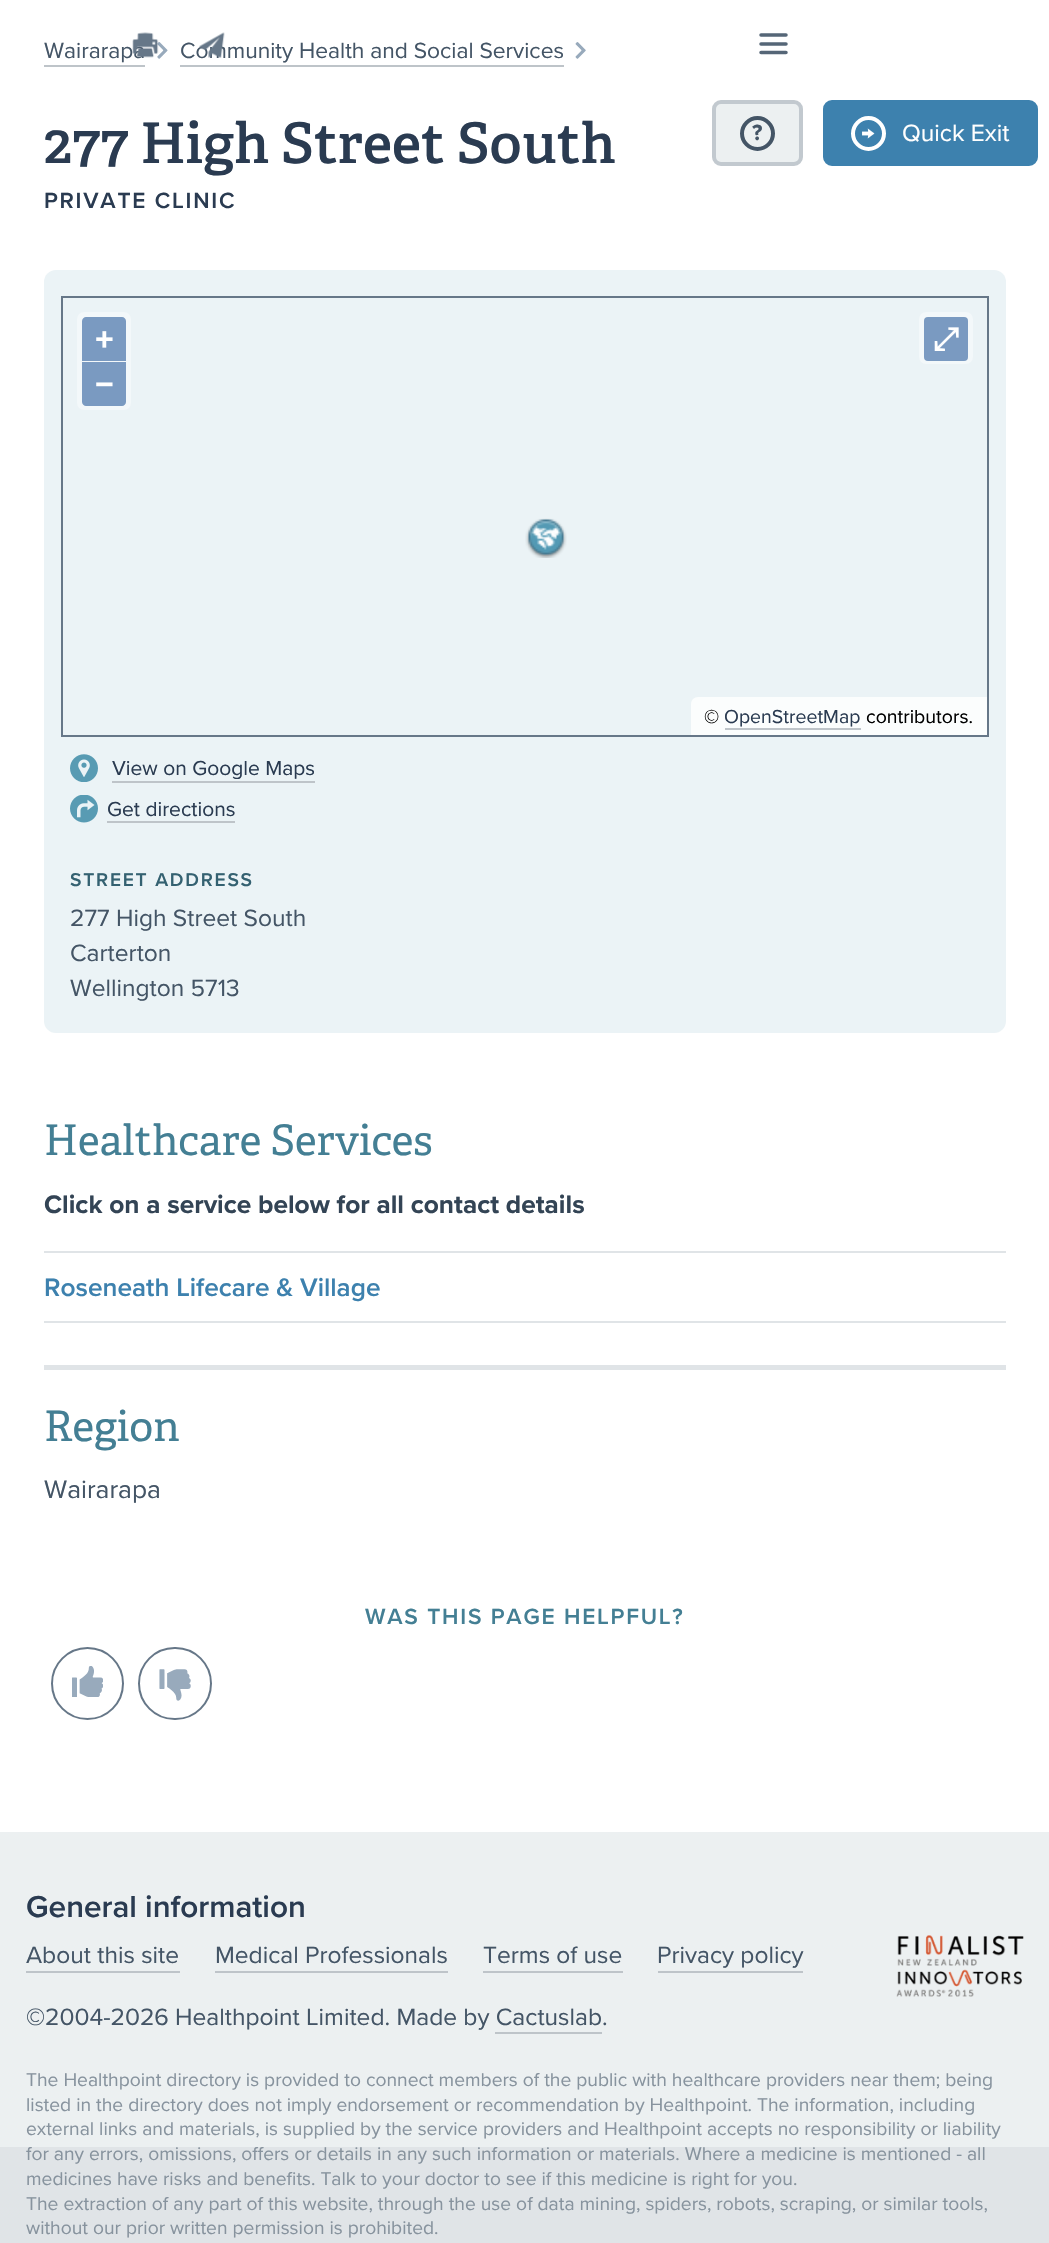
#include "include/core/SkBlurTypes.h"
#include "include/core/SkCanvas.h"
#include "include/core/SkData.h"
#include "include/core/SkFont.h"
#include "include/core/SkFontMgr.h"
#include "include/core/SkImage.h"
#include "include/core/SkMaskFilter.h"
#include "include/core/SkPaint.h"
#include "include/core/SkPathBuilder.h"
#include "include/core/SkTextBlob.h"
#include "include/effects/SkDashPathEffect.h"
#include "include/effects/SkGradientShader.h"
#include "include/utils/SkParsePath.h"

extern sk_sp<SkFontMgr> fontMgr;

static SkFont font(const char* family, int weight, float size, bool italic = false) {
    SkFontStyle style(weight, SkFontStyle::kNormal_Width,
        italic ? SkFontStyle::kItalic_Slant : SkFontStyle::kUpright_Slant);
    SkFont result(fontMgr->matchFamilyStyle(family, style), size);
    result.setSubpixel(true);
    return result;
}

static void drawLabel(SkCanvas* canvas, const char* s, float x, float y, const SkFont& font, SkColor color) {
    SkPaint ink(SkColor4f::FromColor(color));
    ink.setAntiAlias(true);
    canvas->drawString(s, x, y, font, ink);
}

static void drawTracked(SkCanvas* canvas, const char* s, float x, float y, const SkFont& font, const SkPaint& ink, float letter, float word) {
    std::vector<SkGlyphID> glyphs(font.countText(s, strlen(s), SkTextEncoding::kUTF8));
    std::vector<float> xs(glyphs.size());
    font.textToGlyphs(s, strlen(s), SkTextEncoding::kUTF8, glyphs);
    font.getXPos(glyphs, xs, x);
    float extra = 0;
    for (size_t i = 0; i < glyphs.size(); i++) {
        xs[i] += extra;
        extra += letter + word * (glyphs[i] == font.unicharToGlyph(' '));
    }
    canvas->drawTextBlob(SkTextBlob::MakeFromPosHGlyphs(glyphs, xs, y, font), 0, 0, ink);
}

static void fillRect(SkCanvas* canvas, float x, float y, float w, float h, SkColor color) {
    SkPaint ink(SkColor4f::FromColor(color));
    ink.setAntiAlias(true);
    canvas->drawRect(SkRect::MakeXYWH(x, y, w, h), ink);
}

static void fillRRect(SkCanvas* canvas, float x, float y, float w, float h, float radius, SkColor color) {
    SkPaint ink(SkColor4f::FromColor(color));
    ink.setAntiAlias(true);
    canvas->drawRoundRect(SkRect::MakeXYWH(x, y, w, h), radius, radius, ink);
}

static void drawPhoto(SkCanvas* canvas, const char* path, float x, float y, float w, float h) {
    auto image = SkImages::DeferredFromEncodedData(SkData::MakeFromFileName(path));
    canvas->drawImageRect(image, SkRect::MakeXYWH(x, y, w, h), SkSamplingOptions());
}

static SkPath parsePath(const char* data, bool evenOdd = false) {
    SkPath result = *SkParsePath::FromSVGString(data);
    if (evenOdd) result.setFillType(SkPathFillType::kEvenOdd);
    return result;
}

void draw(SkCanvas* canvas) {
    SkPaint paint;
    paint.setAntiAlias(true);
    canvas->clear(0xFFE0E4E7);
    fillRect(canvas, 0, 0, 1049, 1832, 0xFFFFFFFF);
    SkFont font1 = font("Proxima Nova", 400, 22.75f);
    drawLabel(canvas, "Wairarapa", 44, 58, font1, 0xFF445566);
    drawPhoto(canvas, "assets/img3.png", 157, 42, 11, 17);
    drawPhoto(canvas, "assets/img1.png", 132, 32, 27, 26);
    drawLabel(canvas, "Community Health and Social Services", 180, 58, font1, 0xFF445566);
    drawPhoto(canvas, "assets/img2.png", 199, 32, 26, 26);
    paint.setStroke(true);
    paint.setStrokeWidth(3.5f);
    paint.setStrokeCap(SkPaint::kRound_Cap);
    paint.setColor(0xFF556677);
    canvas->drawPath(parsePath("M761 35H786M761 44H786M761 52.5H786"), paint);
    fillRect(canvas, 44, 65, 101, 2, 0xFFBEC4C9);
    fillRect(canvas, 180, 65, 384, 2, 0xFFBEC4C9);
    drawPhoto(canvas, "assets/img4.png", 575, 42, 11, 17);
    SkFont font2 = font("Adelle", 600, 56);
    drawLabel(canvas, "277 High Street South", 44, 163, font2, 0xFF2A3B51);
    SkFont font3 = font("Proxima Nova", 600, 22.75f);
    paint.setStroke(false);
    paint.setColor(0xFF2A3B51);
    drawTracked(canvas, "PRIVATE CLINIC", 44, 208, font3, paint, 1.75f, 0);
    fillRRect(canvas, 44, 270, 962, 763, 12, 0xFFEBF3F6);
    paint.setStroke(true);
    paint.setStrokeWidth(2);
    paint.setStrokeCap(SkPaint::kButt_Cap);
    paint.setColor(0xFF667788);
    canvas->drawRect(SkRect::MakeXYWH(62, 297, 926, 439), paint);
    fillRRect(canvas, 77, 312, 54, 98, 7, 0xFFF3F8FA);
    paint.setStroke(false);
    paint.setColor(0xFF7A9AC1);
    canvas->drawPath(parsePath("M86 317H122C124 317 126 319 126 321V361H82V321C82 319 84 317 86 317Z"), paint);
    SkFont font4 = font("Liberation Sans", 700, 32);
    drawLabel(canvas, "+", 95, 350, font4, 0xFFFFFFFF);
    canvas->drawPath(parsePath("M82 362H126V402C126 404 124 406 122 406H86C84 406 82 404 82 402Z"), paint);
    drawLabel(canvas, "−", 95, 395, font4, 0xFFFFFFFF);
    fillRRect(canvas, 919, 312, 54, 52, 7, 0xFFF3F8FA);
    fillRRect(canvas, 924, 317, 44, 44, 4, 0xFF7A9AC1);
    SkFont font5 = font("FreeSerif", 700, 32);
    drawLabel(canvas, "⤢", 933, 350, font5, 0xFFFFFFFF);
    drawPhoto(canvas, "assets/img5.png", 525, 518, 42, 40);
    paint.setColor(0xFFFBFDFD);
    canvas->drawPath(parsePath("M698 697H987V735H691V704C691 700 694 697 698 697Z"), paint);
    SkFont font6 = font("Proxima Nova", 400, 19.5f);
    drawLabel(canvas, "©", 704, 723, font6, 0xFF000000);
    drawLabel(canvas, "OpenStreetMap", 724, 723, font6, 0xFF2A3B51);
    fillRect(canvas, 725, 728, 136, 2, 0xFFBEC4C9);
    drawLabel(canvas, "contributors.", 866, 723, font6, 0xFF000000);
    drawPhoto(canvas, "assets/img6.png", 70, 754, 28, 28);
    SkFont font7 = font("Proxima Nova", 400, 21);
    drawLabel(canvas, "View on Google Maps", 112, 775, font7, 0xFF2A3B51);
    fillRect(canvas, 112, 781, 203, 2, 0xFFBEC4C9);
    drawPhoto(canvas, "assets/img7.png", 70, 795, 28, 28);
    drawLabel(canvas, "Get directions", 107, 816, font7, 0xFF2A3B51);
    fillRect(canvas, 107, 821, 128, 2, 0xFFBEC4C9);
    SkFont font8 = font("Proxima Nova", 600, 19.25f);
    paint.setColor(0xFF346171);
    drawTracked(canvas, "STREET ADDRESS", 70, 886, font8, paint, 1.75f, 0);
    SkFont font9 = font("Proxima Nova", 400, 24.5f);
    drawLabel(canvas, "277 High Street South", 70, 926, font9, 0xFF445566);
    drawLabel(canvas, "Carterton", 70, 961, font9, 0xFF445566);
    drawLabel(canvas, "Wellington 5713", 70, 996, font9, 0xFF445566);
    SkFont font10 = font("Adelle", 400, 42);
    drawLabel(canvas, "Healthcare Services", 44, 1155, font10, 0xFF447F94);
    SkFont font11 = font("Proxima Nova", 700, 26.25f);
    drawLabel(canvas, "Click on a service below for all contact details", 44, 1213, font11, 0xFF334455);
    fillRect(canvas, 44, 1251, 962, 2, 0xFFE0E4E7);
    fillRect(canvas, 44, 1321, 962, 2, 0xFFE0E4E7);
    SkFont font12 = font("Proxima Nova", 600, 26.25f);
    drawLabel(canvas, "Roseneath Lifecare & Village", 44, 1296, font12, 0xFF3D81AE);
    fillRect(canvas, 44, 1365, 962, 5, 0xFFE0E4E7);
    drawLabel(canvas, "Region", 44, 1441, font10, 0xFF447F94);
    SkFont font13 = font("Proxima Nova", 400, 26.25f);
    drawLabel(canvas, "Wairarapa", 44, 1498, font13, 0xFF445566);
    paint.setColor(0xFF447F94);
    drawTracked(canvas, "WAS THIS PAGE HELPFUL?", 365, 1624, font3, paint, 1.75f, 0);
    paint.setStroke(true);
    paint.setColor(0xFF667788);
    canvas->drawCircle(87.5f, 1683.5f, 35.5f, paint);
    drawPhoto(canvas, "assets/img8.png", 72, 1666, 31, 31);
    canvas->drawRoundRect(SkRect::MakeXYWH(139, 1648, 72, 71), 35.5f, 35.5f, paint);
    drawPhoto(canvas, "assets/img9.png", 159, 1669, 32, 32);
    paint.setStroke(false);
    paint.setColor(0xFFECF0F1);
    canvas->drawRoundRect(SkRect::MakeXYWH(714, 102, 87, 62), 7, 7, paint);
    paint.setStroke(true);
    paint.setStrokeWidth(4);
    paint.setColor(0xFFC2C9CF);
    canvas->drawRoundRect(SkRect::MakeXYWH(714, 102, 87, 62), 7, 7, paint);
    paint.setColor(0xFF445566);
    canvas->drawCircle(757.5f, 133.5f, 15.5f, paint);
    SkFont font14 = font("Proxima Nova", 700, 22.75f);
    drawLabel(canvas, "?", 752, 140, font14, 0xFF445566);
    paint.setStroke(false);
    paint.setColor(0xFF3D81AE);
    canvas->drawRoundRect(SkRect::MakeXYWH(825, 102, 211, 62), 7, 7, paint);
    paint.setStroke(true);
    canvas->drawRoundRect(SkRect::MakeXYWH(825, 102, 211, 62), 7, 7, paint);
    paint.setColor(0xFFFFFFFF);
    canvas->drawCircle(868.5f, 133.5f, 15.5f, paint);
    drawLabel(canvas, "→", 861, 140, font14, 0xFFFFFFFF);
    drawLabel(canvas, "Quick Exit", 902, 141, font9, 0xFFFFFFFF);
    fillRect(canvas, 0, 1832, 1049, 315, 0xFFECF0F1);
    SkFont font15 = font("Proxima Nova", 600, 31.5f);
    drawLabel(canvas, "General information", 26, 1917, font15, 0xFF2A3B51);
    drawPhoto(canvas, "assets/img10.png", 896, 1935, 128, 62);
    drawLabel(canvas, "About this site", 26, 1963, font9, 0xFF445566);
    fillRect(canvas, 26, 1971, 154, 2, 0xFFBEC4C9);
    drawLabel(canvas, "Medical Professionals", 215, 1963, font9, 0xFF445566);
    fillRect(canvas, 215, 1971, 233, 2, 0xFFBEC4C9);
    drawLabel(canvas, "Terms of use", 483, 1963, font9, 0xFF445566);
    fillRect(canvas, 483, 1971, 140, 2, 0xFFBEC4C9);
    drawLabel(canvas, "Privacy policy", 657, 1963, font9, 0xFF445566);
    fillRect(canvas, 658, 1971, 145, 2, 0xFFBEC4C9);
    drawLabel(canvas, "©2004-2026 Healthpoint Limited. Made by Cactuslab.", 26, 2025, font9, 0xFF445566);
    fillRect(canvas, 495, 2032, 107, 2, 0xFFBEC4C9);
    SkFont font16 = font("Proxima Nova", 400, 19.25f);
    drawLabel(canvas, "The Healthpoint directory is provided to connect members of the public with healthcare providers near them; being", 26, 2086, font16, 0xFF87939E);
    drawLabel(canvas, "listed in the directory does not imply endorsement or recommendation by Healthpoint. The information, including", 26, 2111, font16, 0xFF87939E);
    drawLabel(canvas, "external links and materials, is supplied by the service providers and Healthpoint accepts no responsibility or liability", 26, 2135, font16, 0xFF87939E);
    drawLabel(canvas, "for any errors, omissions, offers or details in any such information or materials. Where a medicine is mentioned - all", 26, 2160, font16, 0xFF87939E);
    drawLabel(canvas, "medicines have risks and benefits. Talk to your doctor to see if this medicine is right for you.", 26, 2185, font16, 0xFF87939E);
    drawLabel(canvas, "The extraction of any part of this website, through the use of data mining, spiders, robots, scraping, or similar tools,", 26, 2210, font16, 0xFF87939E);
    drawLabel(canvas, "without our prior written permission is prohibited.", 26, 2234, font16, 0xFF87939E);
}
